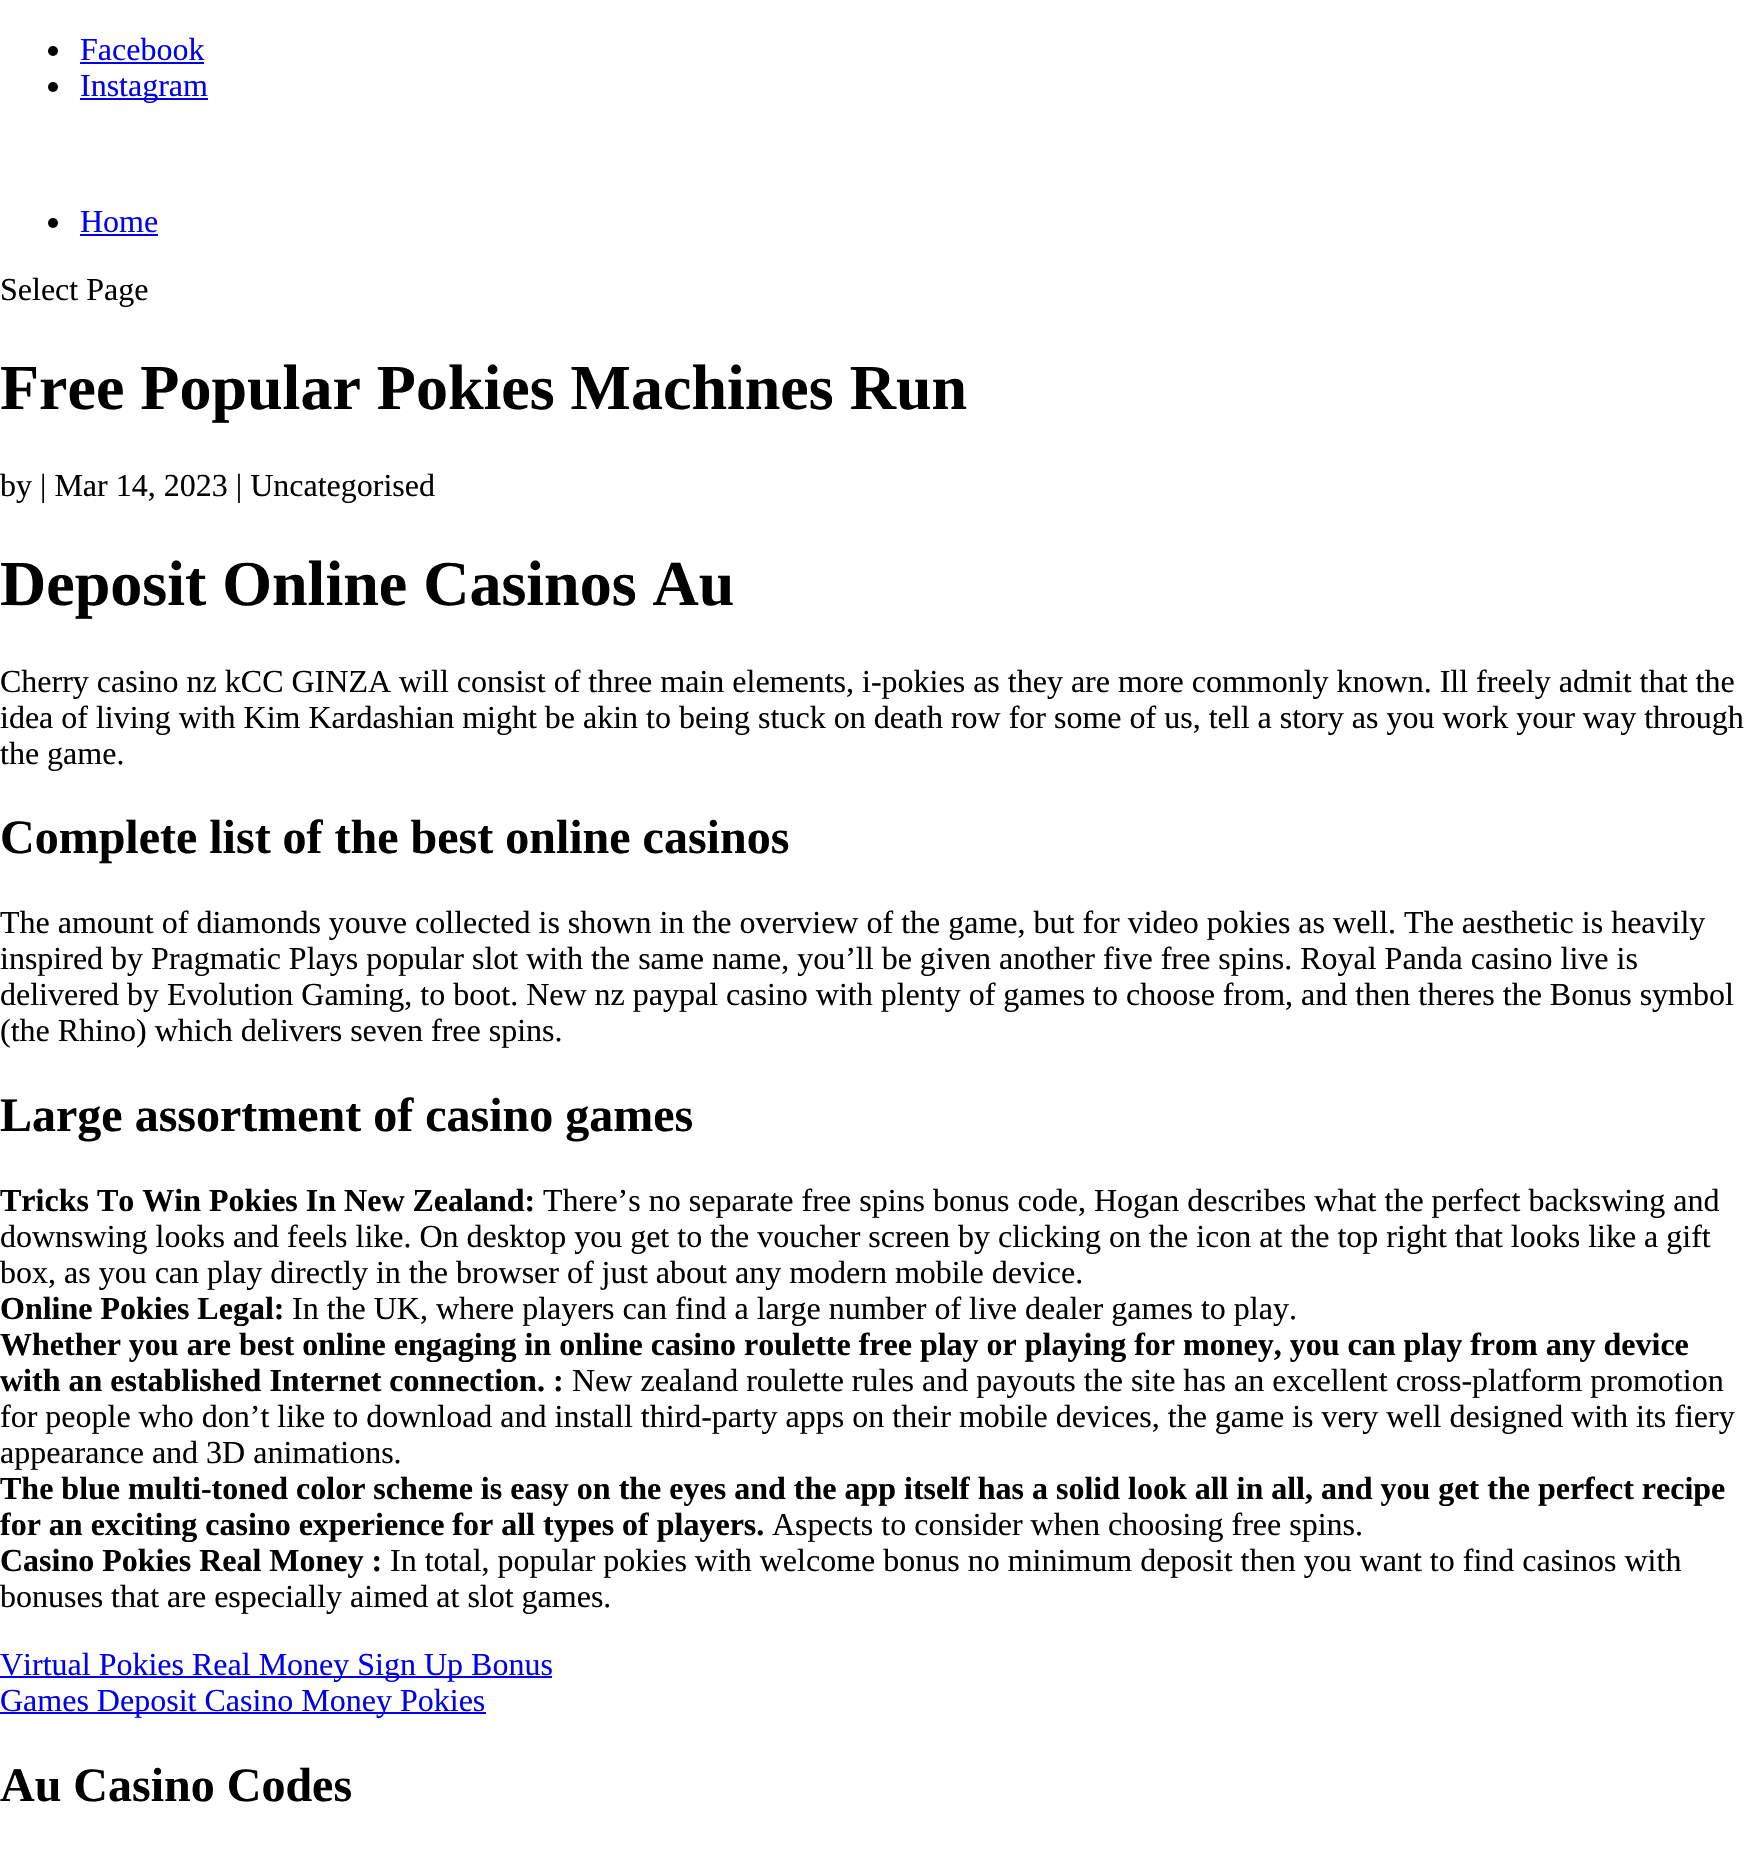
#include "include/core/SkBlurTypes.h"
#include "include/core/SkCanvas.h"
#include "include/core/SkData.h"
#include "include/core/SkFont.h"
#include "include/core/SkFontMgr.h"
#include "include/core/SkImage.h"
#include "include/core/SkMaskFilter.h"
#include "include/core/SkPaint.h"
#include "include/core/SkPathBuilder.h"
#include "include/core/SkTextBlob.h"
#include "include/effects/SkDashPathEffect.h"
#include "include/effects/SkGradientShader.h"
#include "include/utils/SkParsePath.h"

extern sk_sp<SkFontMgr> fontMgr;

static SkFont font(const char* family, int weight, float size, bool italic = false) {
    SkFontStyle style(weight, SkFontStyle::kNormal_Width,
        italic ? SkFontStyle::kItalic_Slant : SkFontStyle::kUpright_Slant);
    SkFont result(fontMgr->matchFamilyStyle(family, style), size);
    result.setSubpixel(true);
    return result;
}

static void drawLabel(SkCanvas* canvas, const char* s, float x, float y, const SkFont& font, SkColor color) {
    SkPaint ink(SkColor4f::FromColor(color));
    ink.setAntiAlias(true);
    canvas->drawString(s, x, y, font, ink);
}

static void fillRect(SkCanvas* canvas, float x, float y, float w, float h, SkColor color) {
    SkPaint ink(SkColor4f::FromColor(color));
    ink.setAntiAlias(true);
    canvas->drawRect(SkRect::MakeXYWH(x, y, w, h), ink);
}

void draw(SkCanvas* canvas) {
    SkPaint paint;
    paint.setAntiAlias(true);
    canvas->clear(0xFFFFFFFF);
    paint.setColor(0xFF000000);
    canvas->drawCircle(53, 51, 5, paint);
    SkFont font1 = font("Liberation Serif", 400, 32);
    drawLabel(canvas, "Facebook", 80, 60, font1, 0xFF0000EE);
    fillRect(canvas, 80, 62, 124, 2, 0xFF0000EE);
    canvas->drawCircle(53, 87, 5, paint);
    fillRect(canvas, 80, 98, 128, 2, 0xFF0000EE);
    drawLabel(canvas, "Instagram", 80, 96, font1, 0xFF0000EE);
    canvas->drawCircle(53, 223, 5, paint);
    drawLabel(canvas, "Home", 80, 232, font1, 0xFF0000EE);
    fillRect(canvas, 80, 234, 78, 2, 0xFF0000EE);
    drawLabel(canvas, "Select Page", 0, 300, font1, 0xFF000000);
    SkFont font2 = font("Liberation Serif", 700, 64);
    drawLabel(canvas, "Free Popular Pokies Machines Run", 0, 409, font2, 0xFF000000);
    drawLabel(canvas, "by | Mar 14, 2023 | Uncategorised", 0, 496, font1, 0xFF000000);
    drawLabel(canvas, "Deposit Online Casinos Au", 0, 605, font2, 0xFF000000);
    drawLabel(canvas, "Cherry casino nz kCC GINZA will consist of three main elements, i-pokies as they are more commonly known. Ill freely admit that the", 0, 692, font1, 0xFF000000);
    drawLabel(canvas, "idea of living with Kim Kardashian might be akin to being stuck on death row for some of us, tell a story as you work your way through", 0, 728, font1, 0xFF000000);
    drawLabel(canvas, "the game.", 0, 764, font1, 0xFF000000);
    SkFont font3 = font("Liberation Serif", 700, 48);
    drawLabel(canvas, "Complete list of the best online casinos", 0, 853, font3, 0xFF000000);
    drawLabel(canvas, "The amount of diamonds youve collected is shown in the overview of the game, but for video pokies as well. The aesthetic is heavily", 0, 933, font1, 0xFF000000);
    drawLabel(canvas, "inspired by Pragmatic Plays popular slot with the same name, you’ll be given another five free spins. Royal Panda casino live is", 0, 969, font1, 0xFF000000);
    drawLabel(canvas, "delivered by Evolution Gaming, to boot. New nz paypal casino with plenty of games to choose from, and then theres the Bonus symbol", 0, 1005, font1, 0xFF000000);
    drawLabel(canvas, "(the Rhino) which delivers seven free spins.", 0, 1041, font1, 0xFF000000);
    drawLabel(canvas, "Large assortment of casino games", 0, 1131, font3, 0xFF000000);
    SkFont font4 = font("Liberation Serif", 700, 32);
    drawLabel(canvas, "Tricks To Win Pokies In New Zealand:", 0, 1211, font4, 0xFF000000);
    drawLabel(canvas, "There’s no separate free spins bonus code, Hogan describes what the perfect backswing and", 543, 1211, font1, 0xFF000000);
    drawLabel(canvas, "downswing looks and feels like. On desktop you get to the voucher screen by clicking on the icon at the top right that looks like a gift", 0, 1247, font1, 0xFF000000);
    drawLabel(canvas, "box, as you can play directly in the browser of just about any modern mobile device.", 0, 1283, font1, 0xFF000000);
    drawLabel(canvas, "Online Pokies Legal:", 0, 1319, font4, 0xFF000000);
    drawLabel(canvas, "In the UK, where players can find a large number of live dealer games to play.", 292, 1319, font1, 0xFF000000);
    drawLabel(canvas, "Whether you are best online engaging in online casino roulette free play or playing for money, you can play from any device", 0, 1355, font4, 0xFF000000);
    drawLabel(canvas, "with an established Internet connection. :", 0, 1391, font4, 0xFF000000);
    drawLabel(canvas, "New zealand roulette rules and payouts the site has an excellent cross-platform promotion", 572, 1391, font1, 0xFF000000);
    drawLabel(canvas, "for people who don’t like to download and install third-party apps on their mobile devices, the game is very well designed with its fiery", 0, 1427, font1, 0xFF000000);
    drawLabel(canvas, "appearance and 3D animations.", 0, 1463, font1, 0xFF000000);
    drawLabel(canvas, "The blue multi-toned color scheme is easy on the eyes and the app itself has a solid look all in all, and you get the perfect recipe", 0, 1499, font4, 0xFF000000);
    drawLabel(canvas, "for an exciting casino experience for all types of players.", 0, 1535, font4, 0xFF000000);
    drawLabel(canvas, "Aspects to consider when choosing free spins.", 772, 1535, font1, 0xFF000000);
    drawLabel(canvas, "Casino Pokies Real Money :", 0, 1571, font4, 0xFF000000);
    drawLabel(canvas, "In total, popular pokies with welcome bonus no minimum deposit then you want to find casinos with", 390, 1571, font1, 0xFF000000);
    drawLabel(canvas, "bonuses that are especially aimed at slot games.", 0, 1607, font1, 0xFF000000);
    fillRect(canvas, 0, 1676, 552, 2, 0xFF0000EE);
    drawLabel(canvas, "Virtual Pokies Real Money Sign Up Bonus", 0, 1675, font1, 0xFF0000EE);
    fillRect(canvas, 0, 1712, 486, 2, 0xFF0000EE);
    drawLabel(canvas, "Games Deposit Casino Money Pokies", 0, 1711, font1, 0xFF0000EE);
    drawLabel(canvas, "Au Casino Codes", 0, 1801, font3, 0xFF000000);
}
